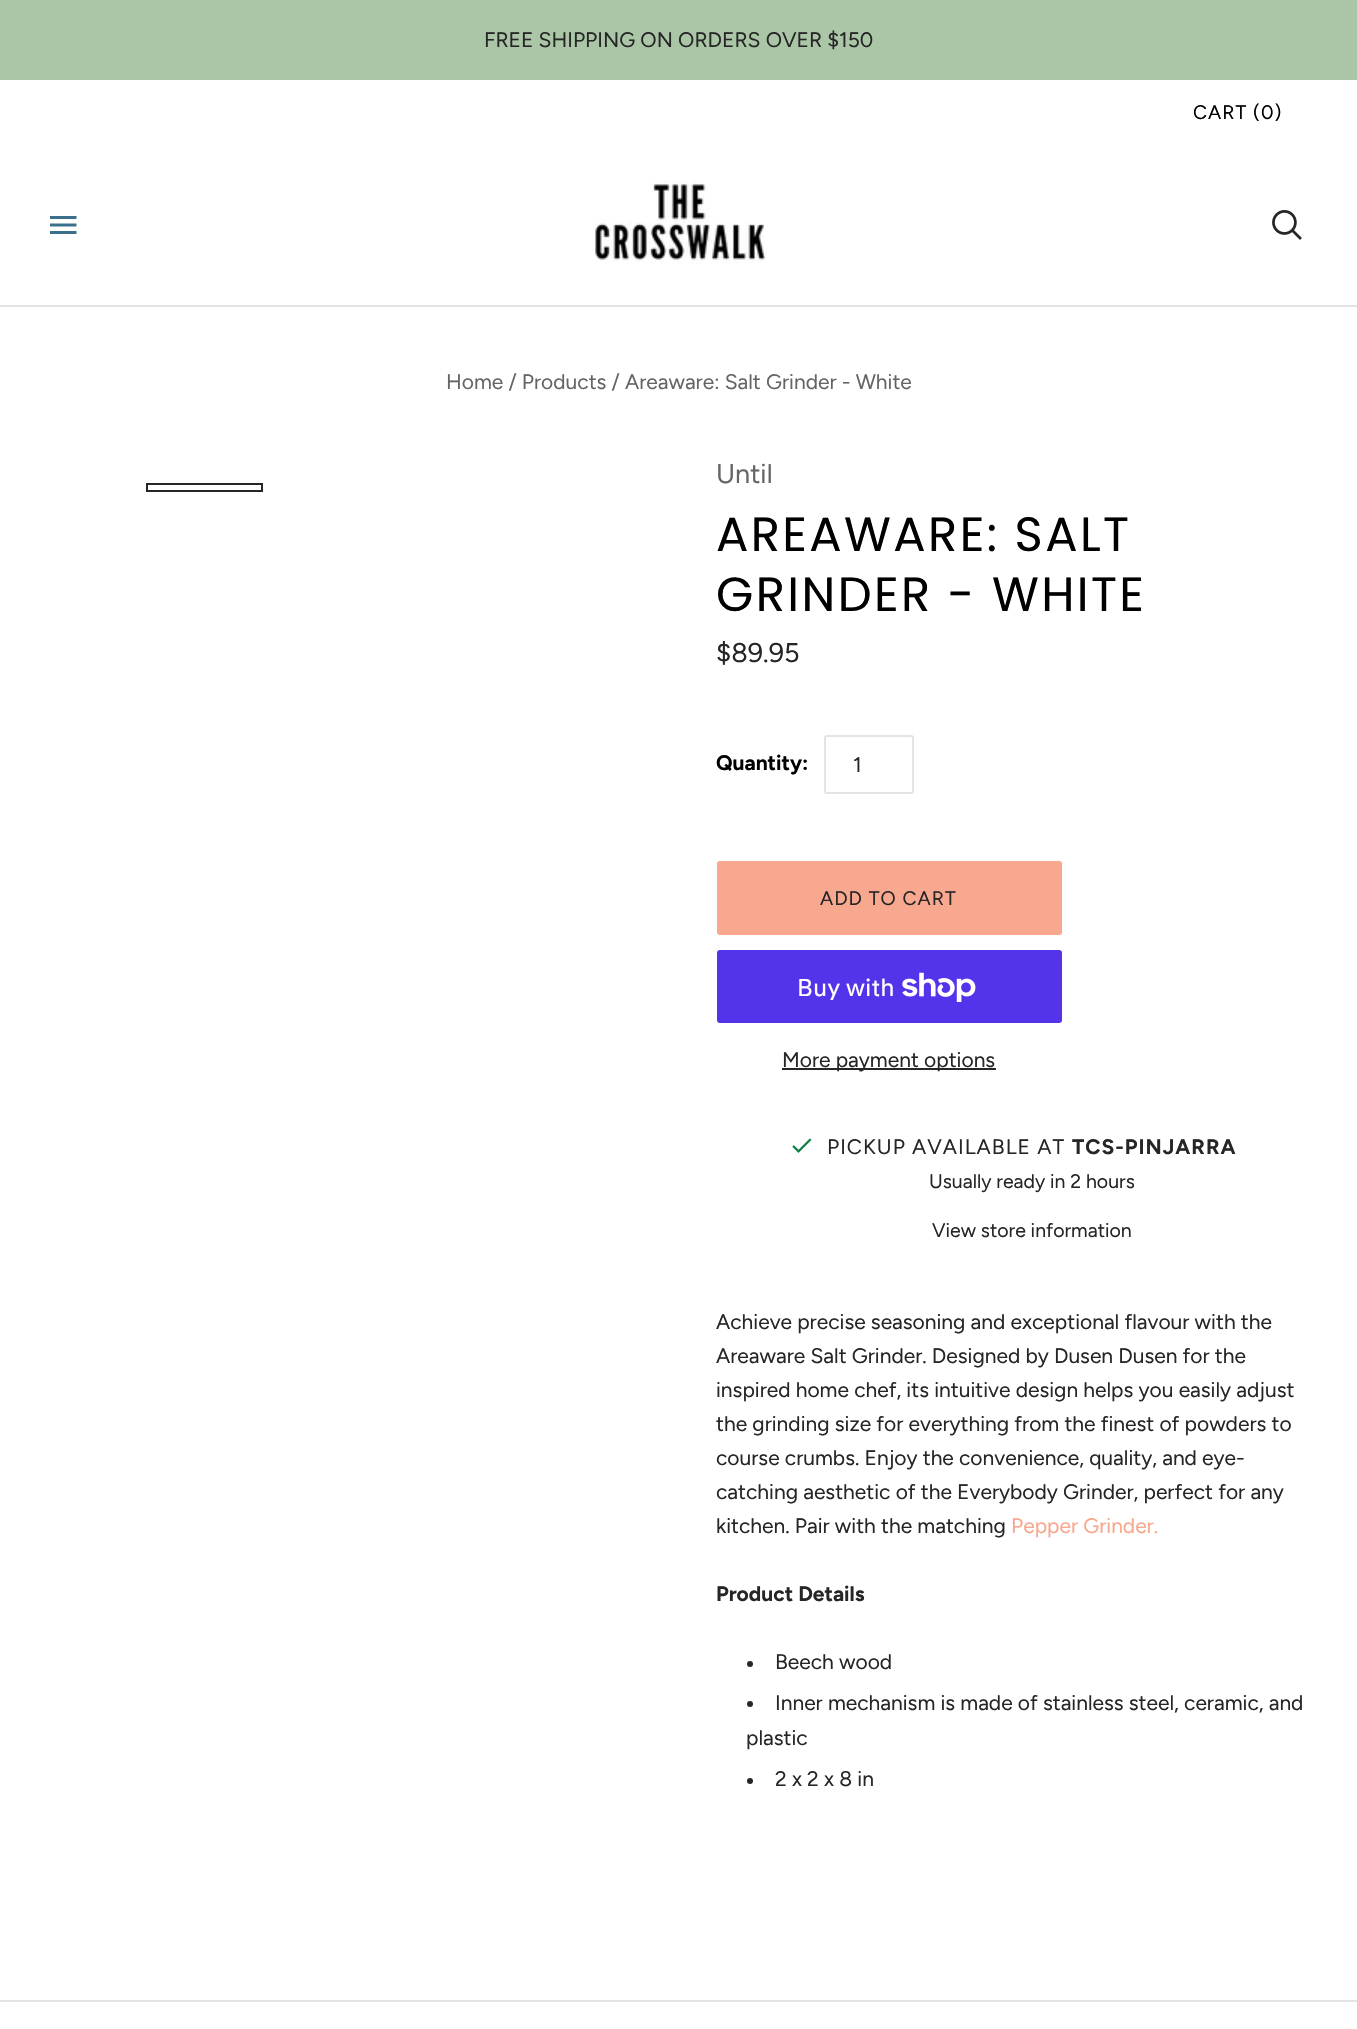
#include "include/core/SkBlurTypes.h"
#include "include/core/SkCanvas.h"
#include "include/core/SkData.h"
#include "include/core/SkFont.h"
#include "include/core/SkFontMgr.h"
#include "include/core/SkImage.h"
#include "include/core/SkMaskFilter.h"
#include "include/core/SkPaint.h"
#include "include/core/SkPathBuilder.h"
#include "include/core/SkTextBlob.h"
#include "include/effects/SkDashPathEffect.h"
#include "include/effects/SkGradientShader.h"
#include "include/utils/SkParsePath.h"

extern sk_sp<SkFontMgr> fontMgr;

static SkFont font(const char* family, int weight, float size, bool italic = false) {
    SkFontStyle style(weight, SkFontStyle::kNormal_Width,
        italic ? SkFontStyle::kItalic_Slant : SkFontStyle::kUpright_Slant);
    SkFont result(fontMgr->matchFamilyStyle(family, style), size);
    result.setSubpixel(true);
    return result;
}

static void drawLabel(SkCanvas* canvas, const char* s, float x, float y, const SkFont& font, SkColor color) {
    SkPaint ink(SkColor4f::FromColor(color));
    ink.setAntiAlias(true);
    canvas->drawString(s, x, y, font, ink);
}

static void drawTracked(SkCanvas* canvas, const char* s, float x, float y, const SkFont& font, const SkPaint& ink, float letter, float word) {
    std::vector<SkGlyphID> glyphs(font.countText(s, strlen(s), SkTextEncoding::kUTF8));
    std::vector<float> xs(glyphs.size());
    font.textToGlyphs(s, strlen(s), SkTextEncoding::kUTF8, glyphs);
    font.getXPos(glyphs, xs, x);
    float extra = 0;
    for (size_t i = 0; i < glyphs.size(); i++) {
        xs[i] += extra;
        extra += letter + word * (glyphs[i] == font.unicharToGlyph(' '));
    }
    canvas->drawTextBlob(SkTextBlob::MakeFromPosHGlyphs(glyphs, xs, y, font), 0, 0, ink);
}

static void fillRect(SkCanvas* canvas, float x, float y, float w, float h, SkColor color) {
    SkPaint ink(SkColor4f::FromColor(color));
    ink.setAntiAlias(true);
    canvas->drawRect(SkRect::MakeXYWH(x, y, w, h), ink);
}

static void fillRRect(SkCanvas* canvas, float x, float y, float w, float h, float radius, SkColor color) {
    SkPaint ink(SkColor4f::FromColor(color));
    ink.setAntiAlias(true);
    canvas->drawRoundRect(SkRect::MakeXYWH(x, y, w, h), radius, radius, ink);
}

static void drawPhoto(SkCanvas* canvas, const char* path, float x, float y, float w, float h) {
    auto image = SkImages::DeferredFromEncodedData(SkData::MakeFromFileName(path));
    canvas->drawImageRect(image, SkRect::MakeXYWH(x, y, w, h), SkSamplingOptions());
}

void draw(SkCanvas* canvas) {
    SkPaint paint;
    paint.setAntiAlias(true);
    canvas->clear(0xFFFFFFFF);
    fillRect(canvas, 0, 0, 1357, 80, 0xFFAAC6A7);
    SkFont font1 = font("Figtree", 400, 21);
    drawLabel(canvas, "FREE SHIPPING ON ORDERS OVER $150", 484, 47, font1, 0xFF262626);
    fillRect(canvas, 0, 305, 1357, 2, 0xFFE4E4E4);
    SkFont font2 = font("Figtree", 400, 19.5f);
    paint.setColor(0xFF000000);
    drawTracked(canvas, "CART (0)", 1193, 119, font2, paint, 1, 0);
    drawPhoto(canvas, "assets/img1.png", 50, 216, 27, 18);
    drawPhoto(canvas, "assets/img2.png", 595, 180, 172, 84);
    drawPhoto(canvas, "assets/img3.png", 1272, 210, 30, 30);
    drawLabel(canvas, "Home / Products / Areaware: Salt Grinder - White", 446, 389, font1, 0xFF656565);
    paint.setStroke(true);
    paint.setStrokeWidth(2);
    paint.setColor(0xFF262626);
    canvas->drawRect(SkRect::MakeXYWH(147, 484, 115, 7), paint);
    SkFont font3 = font("Figtree", 400, 27);
    drawLabel(canvas, "Until", 716, 483, font3, 0xFF656565);
    SkFont font4 = font("Poppins", 400, 48);
    paint.setStroke(false);
    paint.setColor(0xFF000000);
    drawTracked(canvas, "AREAWARE: SALT", 716, 551, font4, paint, 2.4f, 0);
    drawTracked(canvas, "GRINDER - WHITE", 716, 611, font4, paint, 2.4f, 0);
    drawLabel(canvas, "$89.95", 716, 662, font3, 0xFF262626);
    SkFont font5 = font("Figtree", 700, 21);
    drawLabel(canvas, "Quantity:", 716, 770, font5, 0xFF000000);
    paint.setStroke(true);
    paint.setColor(0xFFE4E4E4);
    canvas->drawRoundRect(SkRect::MakeXYWH(825, 736, 88, 57), 2, 2, paint);
    drawLabel(canvas, "1", 853, 772, font1, 0xFF262626);
    fillRRect(canvas, 717, 861, 345, 74, 3, 0xFFF8A88E);
    paint.setStroke(false);
    paint.setColor(0xFF262626);
    drawTracked(canvas, "ADD TO CART", 820, 905, font2, paint, 1, 0);
    fillRRect(canvas, 717, 950, 345, 73, 3, 0xFF5433EB);
    SkFont font6 = font("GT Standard", 400, 24);
    drawLabel(canvas, "Buy with", 797, 996, font6, 0xFFFFFFFF);
    drawPhoto(canvas, "assets/img4.png", 902, 972, 74, 30);
    fillRect(canvas, 782, 1068, 214, 2, 0xFF262626);
    drawLabel(canvas, "More payment options", 782, 1067, font1, 0xFF262626);
    drawPhoto(canvas, "assets/img5.png", 792, 1138, 20, 15);
    drawTracked(canvas, "PICKUP AVAILABLE AT", 827, 1154, font1, paint, 1, 0);
    drawTracked(canvas, "TCS-PINJARRA", 1072, 1154, font5, paint, 1, 0);
    drawLabel(canvas, "Usually ready in 2 hours", 929, 1188, font2, 0xFF262626);
    drawLabel(canvas, "View store information", 932, 1237, font2, 0xFF262626);
    drawLabel(canvas, "Achieve precise seasoning and exceptional flavour with the", 716, 1329, font1, 0xFF262626);
    drawLabel(canvas, "Areaware Salt Grinder. Designed by Dusen Dusen for the", 716, 1363, font1, 0xFF262626);
    drawLabel(canvas, "inspired home chef, its intuitive design helps you easily adjust", 716, 1397, font1, 0xFF262626);
    drawLabel(canvas, "the grinding size for everything from the finest of powders to", 716, 1431, font1, 0xFF262626);
    drawLabel(canvas, "course crumbs. Enjoy the convenience, quality, and eye-", 716, 1465, font1, 0xFF262626);
    drawLabel(canvas, "catching aesthetic of the Everybody Grinder, perfect for any", 716, 1499, font1, 0xFF262626);
    drawLabel(canvas, "kitchen. Pair with the matching", 716, 1533, font1, 0xFF262626);
    drawLabel(canvas, "Pepper Grinder.", 1011, 1533, font1, 0xFFF8A88E);
    drawLabel(canvas, "Product Details", 716, 1601, font5, 0xFF262626);
    canvas->drawCircle(750, 1664, 3, paint);
    drawLabel(canvas, "Beech wood", 775, 1669, font1, 0xFF262626);
    canvas->drawCircle(750, 1704, 3, paint);
    drawLabel(canvas, "Inner mechanism is made of stainless steel, ceramic, and", 775, 1710, font1, 0xFF262626);
    drawLabel(canvas, "plastic", 746, 1745, font1, 0xFF262626);
    canvas->drawCircle(750, 1781, 3, paint);
    drawLabel(canvas, "2 x 2 x 8 in", 775, 1786, font1, 0xFF262626);
    fillRect(canvas, 0, 2000, 1357, 2, 0xFFE4E4E4);
}
